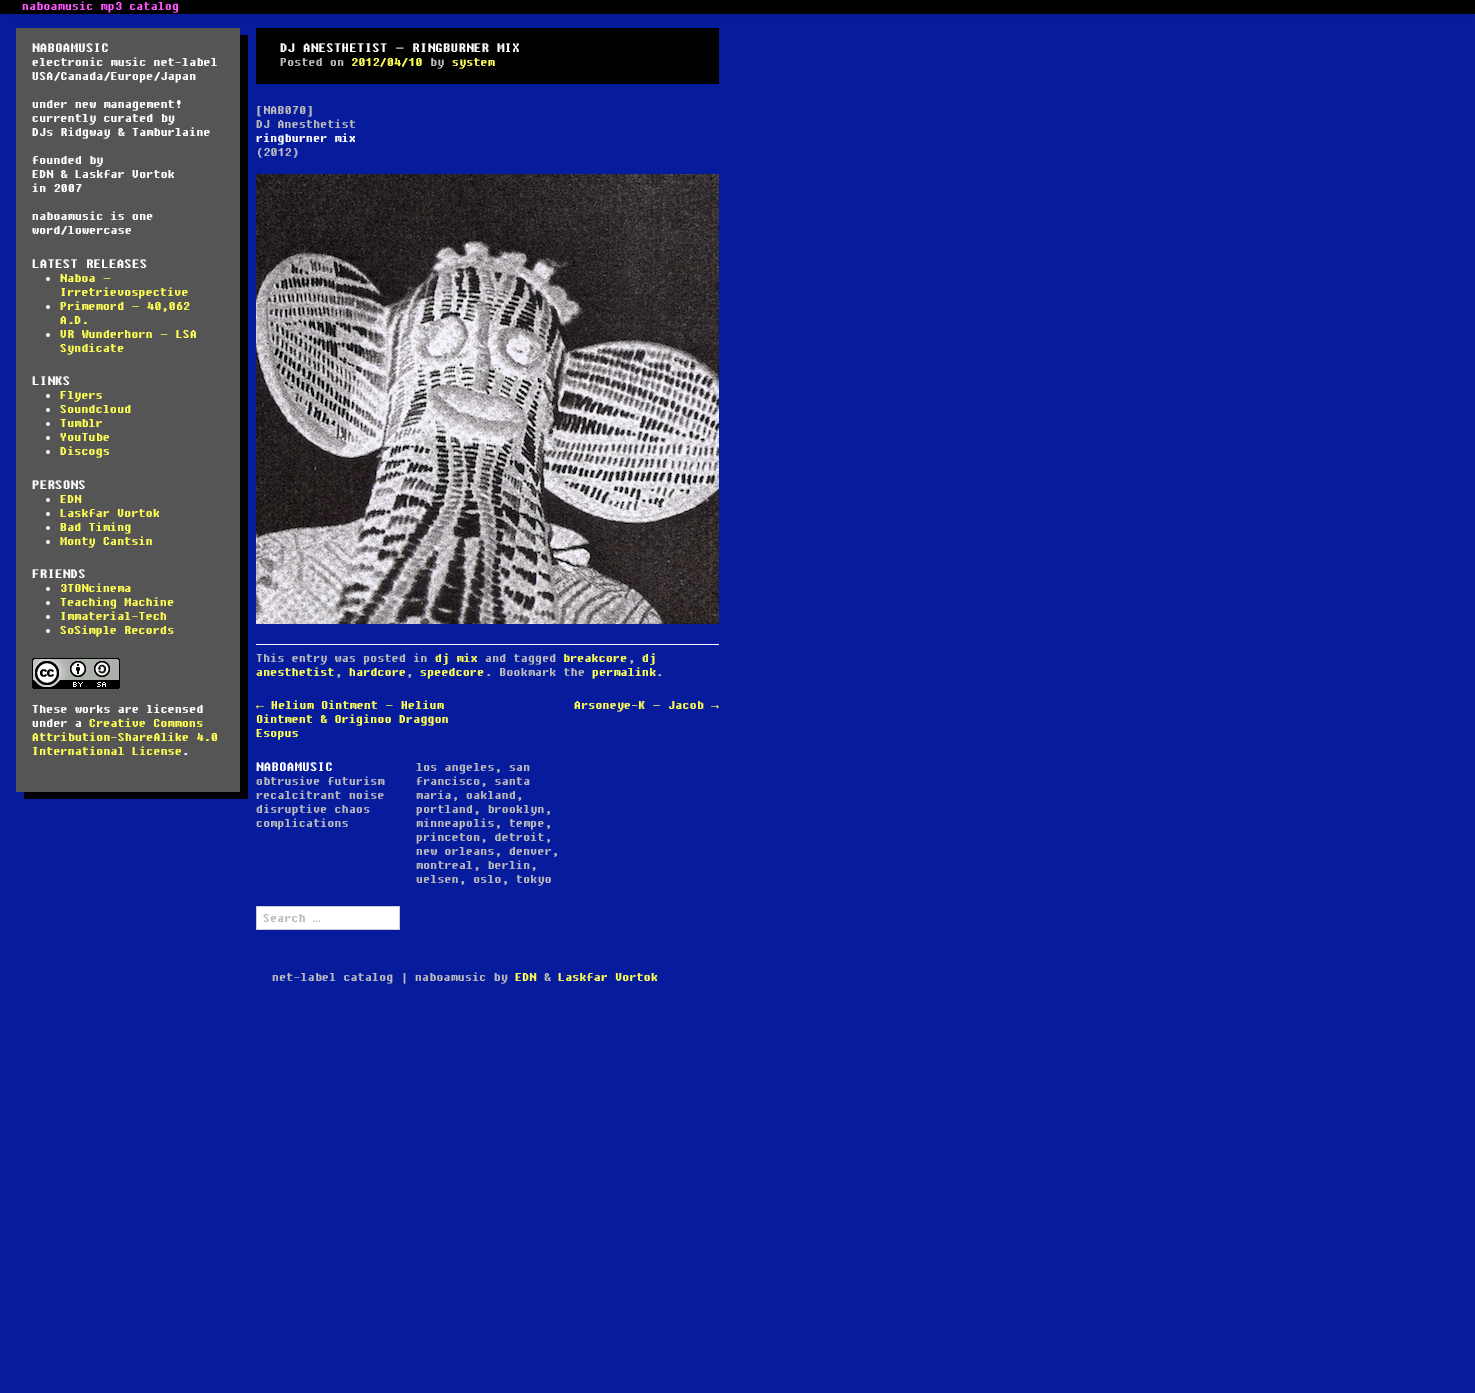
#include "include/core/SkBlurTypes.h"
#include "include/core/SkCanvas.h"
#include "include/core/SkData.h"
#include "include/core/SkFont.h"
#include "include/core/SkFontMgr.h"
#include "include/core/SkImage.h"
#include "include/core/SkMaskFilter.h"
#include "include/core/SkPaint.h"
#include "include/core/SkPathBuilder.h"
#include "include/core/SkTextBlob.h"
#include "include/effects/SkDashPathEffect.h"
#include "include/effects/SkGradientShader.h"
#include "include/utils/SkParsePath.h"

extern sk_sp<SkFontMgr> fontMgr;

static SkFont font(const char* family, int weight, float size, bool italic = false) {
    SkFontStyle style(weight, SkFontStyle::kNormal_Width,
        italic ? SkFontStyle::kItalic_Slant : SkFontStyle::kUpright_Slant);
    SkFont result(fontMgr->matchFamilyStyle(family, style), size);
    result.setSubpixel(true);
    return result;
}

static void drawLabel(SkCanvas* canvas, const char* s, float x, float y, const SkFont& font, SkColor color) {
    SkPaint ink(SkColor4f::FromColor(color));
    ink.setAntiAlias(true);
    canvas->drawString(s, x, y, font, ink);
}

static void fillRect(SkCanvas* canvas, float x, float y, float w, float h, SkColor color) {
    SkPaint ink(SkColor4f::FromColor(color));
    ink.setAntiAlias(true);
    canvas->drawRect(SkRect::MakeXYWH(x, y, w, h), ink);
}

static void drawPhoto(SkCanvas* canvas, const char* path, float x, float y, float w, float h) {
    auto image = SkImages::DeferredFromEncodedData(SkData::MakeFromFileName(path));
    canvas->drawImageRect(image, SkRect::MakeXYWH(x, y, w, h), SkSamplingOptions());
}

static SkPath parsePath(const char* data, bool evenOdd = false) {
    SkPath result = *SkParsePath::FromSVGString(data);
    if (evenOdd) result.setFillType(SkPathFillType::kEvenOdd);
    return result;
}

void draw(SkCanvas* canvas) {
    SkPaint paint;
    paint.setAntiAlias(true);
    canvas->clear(0xFF071B9D);
    paint.setColor(0xFF000000);
    canvas->drawPath(parsePath("M24 792V799H248V35H240V792Z"), paint);
    fillRect(canvas, 16, 28, 224, 764, 0xFF555555);
    fillRect(canvas, 256, 28, 463, 56, 0xFF000000);
    paint.setColor(0x1A000000);
    paint.setMaskFilter(SkMaskFilter::MakeBlur(kNormal_SkBlurStyle, 5));
    canvas->drawRect(SkRect::MakeXYWH(0, 1, 1475, 14), paint);
    paint.setMaskFilter(nullptr);
    fillRect(canvas, 0, 0, 1475, 14, 0xFF000000);
    SkFont font1 = font("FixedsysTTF", 600, 13);
    drawLabel(canvas, "naboamusic mp3 catalog", 22, 10, font1, 0xFFFF55FF);
    SkFont font2 = font("FixedsysTTF", 600, 14);
    drawLabel(canvas, "NABOAMUSIC", 32, 52, font2, 0xFFFFFFFF);
    drawLabel(canvas, "electronic music net-label", 32, 66, font1, 0xFFFFFFFF);
    drawLabel(canvas, "USA/Canada/Europe/Japan", 32, 80, font1, 0xFFFFFFFF);
    drawLabel(canvas, "under new management!", 32, 108, font1, 0xFFFFFFFF);
    drawLabel(canvas, "currently curated by", 32, 122, font1, 0xFFFFFFFF);
    drawLabel(canvas, "DJs Ridgway & Tamburlaine", 32, 136, font1, 0xFFFFFFFF);
    drawLabel(canvas, "founded by", 32, 164, font1, 0xFFFFFFFF);
    drawLabel(canvas, "EDN & Laskfar Vortok", 32, 178, font1, 0xFFFFFFFF);
    drawLabel(canvas, "in 2007", 32, 192, font1, 0xFFFFFFFF);
    drawLabel(canvas, "naboamusic is one", 32, 220, font1, 0xFFFFFFFF);
    drawLabel(canvas, "word/lowercase", 32, 234, font1, 0xFFFFFFFF);
    drawLabel(canvas, "LATEST RELEASES", 32, 268, font2, 0xFFFFFFFF);
    paint.setColor(0xFFFFFFFF);
    canvas->drawCircle(48, 279, 2, paint);
    drawLabel(canvas, "Naboa –", 60, 282, font1, 0xFFFEFE54);
    drawLabel(canvas, "Irretrievospective", 60, 296, font1, 0xFFFEFE54);
    canvas->drawCircle(48, 307, 2, paint);
    drawLabel(canvas, "Primemord – 40,062", 60, 310, font1, 0xFFFEFE54);
    drawLabel(canvas, "A.D.", 60, 324, font1, 0xFFFEFE54);
    canvas->drawCircle(48, 335, 2, paint);
    drawLabel(canvas, "VR Wunderhorn – LSA", 60, 338, font1, 0xFFFEFE54);
    drawLabel(canvas, "Syndicate", 60, 352, font1, 0xFFFEFE54);
    drawLabel(canvas, "LINKS", 32, 385, font2, 0xFFFFFFFF);
    canvas->drawCircle(48, 396, 2, paint);
    drawLabel(canvas, "Flyers", 60, 399, font1, 0xFFFEFE54);
    canvas->drawCircle(48, 410, 2, paint);
    drawLabel(canvas, "Soundcloud", 60, 413, font1, 0xFFFEFE54);
    canvas->drawCircle(48, 424, 2, paint);
    drawLabel(canvas, "Tumblr", 60, 427, font1, 0xFFFEFE54);
    canvas->drawCircle(48, 438, 2, paint);
    drawLabel(canvas, "YouTube", 60, 441, font1, 0xFFFEFE54);
    canvas->drawCircle(48, 452, 2, paint);
    drawLabel(canvas, "Discogs", 60, 455, font1, 0xFFFEFE54);
    drawLabel(canvas, "PERSONS", 32, 489, font2, 0xFFFFFFFF);
    canvas->drawCircle(48, 500, 2, paint);
    drawLabel(canvas, "EDN", 60, 503, font1, 0xFFFEFE54);
    canvas->drawCircle(48, 514, 2, paint);
    drawLabel(canvas, "Laskfar Vortok", 60, 517, font1, 0xFFFEFE54);
    canvas->drawCircle(48, 528, 2, paint);
    drawLabel(canvas, "Bad Timing", 60, 531, font1, 0xFFFEFE54);
    canvas->drawCircle(48, 542, 2, paint);
    drawLabel(canvas, "Monty Cantsin", 60, 545, font1, 0xFFFEFE54);
    drawLabel(canvas, "FRIENDS", 32, 578, font2, 0xFFFFFFFF);
    canvas->drawCircle(48, 589, 2, paint);
    drawLabel(canvas, "3TONcinema", 60, 592, font1, 0xFFFEFE54);
    canvas->drawCircle(48, 603, 2, paint);
    drawLabel(canvas, "Teaching Machine", 60, 606, font1, 0xFFFEFE54);
    canvas->drawCircle(48, 617, 2, paint);
    drawLabel(canvas, "Immaterial-Tech", 60, 620, font1, 0xFFFEFE54);
    canvas->drawCircle(48, 631, 2, paint);
    drawLabel(canvas, "SoSimple Records", 60, 634, font1, 0xFFFEFE54);
    drawPhoto(canvas, "assets/img1.png", 32, 658, 88, 31);
    drawLabel(canvas, "These works are licensed", 32, 713, font1, 0xFFFFFFFF);
    drawLabel(canvas, "under a", 32, 727, font1, 0xFFFFFFFF);
    drawLabel(canvas, "Creative Commons", 89, 727, font1, 0xFFFEFE54);
    drawLabel(canvas, "Attribution-ShareAlike 4.0", 32, 741, font1, 0xFFFEFE54);
    drawLabel(canvas, "International License", 32, 755, font1, 0xFFFEFE54);
    drawLabel(canvas, ".", 182, 755, font1, 0xFFFFFFFF);
    drawLabel(canvas, "DJ ANESTHETIST – RINGBURNER MIX", 280, 52, font2, 0xFFFFFFFF);
    drawLabel(canvas, "Posted on", 280, 66, font1, 0xFFBBBBBB);
    drawLabel(canvas, "2012/04/10", 351, 66, font1, 0xFFFEFE54);
    drawLabel(canvas, "by", 430, 66, font1, 0xFFBBBBBB);
    drawLabel(canvas, "system", 452, 66, font1, 0xFFFEFE54);
    drawLabel(canvas, "[NAB070]", 256, 114, font1, 0xFFBBBBBB);
    drawLabel(canvas, "DJ Anesthetist", 256, 128, font1, 0xFFBBBBBB);
    drawLabel(canvas, "ringburner mix", 256, 142, font1, 0xFFFFFFFF);
    drawLabel(canvas, "(2012)", 256, 156, font1, 0xFFBBBBBB);
    drawPhoto(canvas, "assets/img2.png", 256, 174, 463, 450);
    fillRect(canvas, 256, 644, 463, 1, 0xFFFFFFFF);
    drawLabel(canvas, "This entry was posted in", 256, 662, font1, 0xFFBBBBBB);
    drawLabel(canvas, "dj mix", 435, 662, font1, 0xFFFEFE54);
    drawLabel(canvas, "and tagged", 485, 662, font1, 0xFFBBBBBB);
    drawLabel(canvas, "breakcore", 563, 662, font1, 0xFFFEFE54);
    drawLabel(canvas, ",", 628, 662, font1, 0xFFBBBBBB);
    drawLabel(canvas, "dj", 642, 662, font1, 0xFFFEFE54);
    drawLabel(canvas, "anesthetist", 256, 676, font1, 0xFFFEFE54);
    drawLabel(canvas, ",", 335, 676, font1, 0xFFBBBBBB);
    drawLabel(canvas, "hardcore", 349, 676, font1, 0xFFFEFE54);
    drawLabel(canvas, ",", 406, 676, font1, 0xFFBBBBBB);
    drawLabel(canvas, "speedcore", 420, 676, font1, 0xFFFEFE54);
    drawLabel(canvas, ". Bookmark the", 485, 676, font1, 0xFFBBBBBB);
    drawLabel(canvas, "permalink", 592, 676, font1, 0xFFFEFE54);
    drawLabel(canvas, ".", 656, 676, font1, 0xFFBBBBBB);
    SkFont font3 = font("Liberation Mono", 400, 13);
    drawLabel(canvas, "←", 256, 709, font3, 0xFFFEFE54);
    drawLabel(canvas, "Helium Ointment – Helium", 271, 709, font1, 0xFFFEFE54);
    drawLabel(canvas, "Ointment & Originoo Draggon", 256, 723, font1, 0xFFFEFE54);
    drawLabel(canvas, "Esopus", 256, 737, font1, 0xFFFEFE54);
    drawLabel(canvas, "Arsoneye-K – Jacob", 574, 709, font1, 0xFFFEFE54);
    drawLabel(canvas, "→", 711, 709, font3, 0xFFFEFE54);
    drawLabel(canvas, "NABOAMUSIC", 256, 771, font2, 0xFFFFFFFF);
    drawLabel(canvas, "obtrusive futurism", 256, 785, font1, 0xFFBBBBBB);
    drawLabel(canvas, "recalcitrant noise", 256, 799, font1, 0xFFBBBBBB);
    drawLabel(canvas, "disruptive chaos", 256, 813, font1, 0xFFBBBBBB);
    drawLabel(canvas, "complications", 256, 827, font1, 0xFFBBBBBB);
    drawLabel(canvas, "los angeles, san", 416, 771, font1, 0xFFBBBBBB);
    drawLabel(canvas, "francisco, santa", 416, 785, font1, 0xFFBBBBBB);
    drawLabel(canvas, "maria, oakland,", 416, 799, font1, 0xFFBBBBBB);
    drawLabel(canvas, "portland, brooklyn,", 416, 813, font1, 0xFFBBBBBB);
    drawLabel(canvas, "minneapolis, tempe,", 416, 827, font1, 0xFFBBBBBB);
    drawLabel(canvas, "princeton, detroit,", 416, 841, font1, 0xFFBBBBBB);
    drawLabel(canvas, "new orleans, denver,", 416, 855, font1, 0xFFBBBBBB);
    drawLabel(canvas, "montreal, berlin,", 416, 869, font1, 0xFFBBBBBB);
    drawLabel(canvas, "uelsen, oslo, tokyo", 416, 883, font1, 0xFFBBBBBB);
    canvas->drawRect(SkRect::MakeXYWH(256.5f, 906.5f, 143, 23), paint);
    paint.setStroke(true);
    paint.setStrokeWidth(1);
    paint.setColor(0xFFCCCCCC);
    canvas->drawRect(SkRect::MakeXYWH(256.5f, 906.5f, 143, 23), paint);
    drawLabel(canvas, "Search", 263, 922, font1, 0xFFBBBBBB);
    drawLabel(canvas, "…", 313, 922, font3, 0xFFBBBBBB);
    drawLabel(canvas, "net-label catalog | naboamusic by", 272, 981, font1, 0xFFBBBBBB);
    drawLabel(canvas, "EDN", 515, 981, font1, 0xFFFEFE54);
    drawLabel(canvas, "&", 544, 981, font1, 0xFFBBBBBB);
    drawLabel(canvas, "Laskfar Vortok", 558, 981, font1, 0xFFFEFE54);
}
